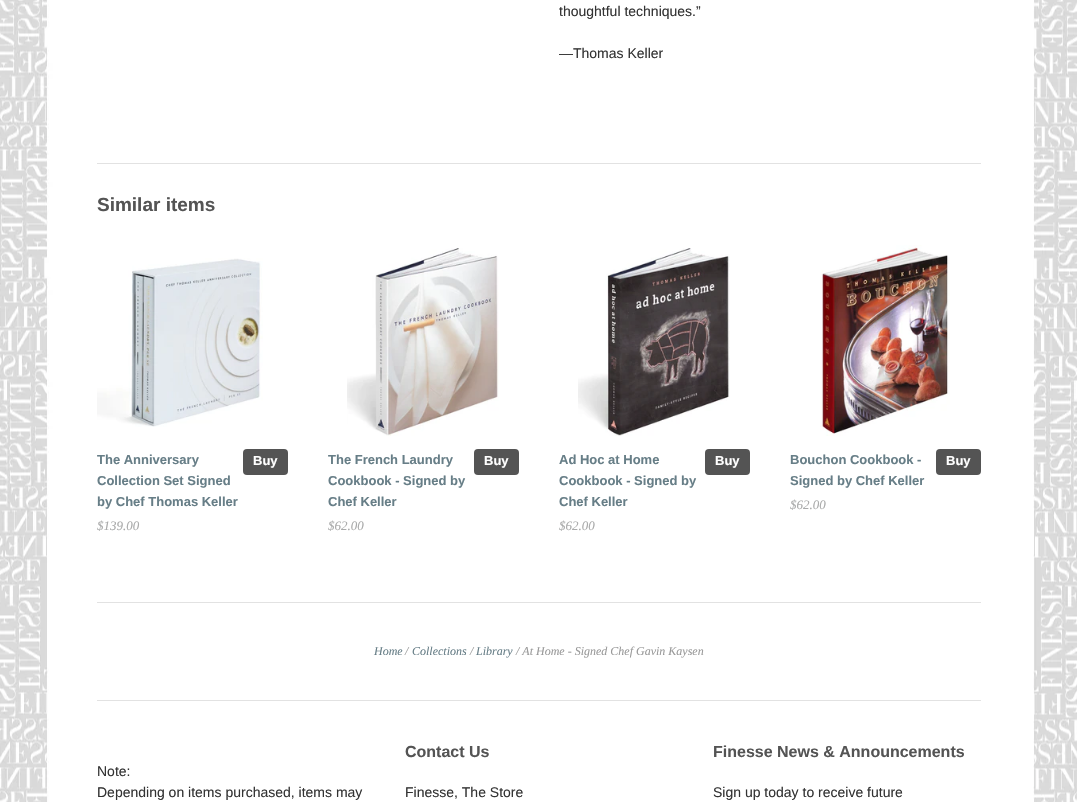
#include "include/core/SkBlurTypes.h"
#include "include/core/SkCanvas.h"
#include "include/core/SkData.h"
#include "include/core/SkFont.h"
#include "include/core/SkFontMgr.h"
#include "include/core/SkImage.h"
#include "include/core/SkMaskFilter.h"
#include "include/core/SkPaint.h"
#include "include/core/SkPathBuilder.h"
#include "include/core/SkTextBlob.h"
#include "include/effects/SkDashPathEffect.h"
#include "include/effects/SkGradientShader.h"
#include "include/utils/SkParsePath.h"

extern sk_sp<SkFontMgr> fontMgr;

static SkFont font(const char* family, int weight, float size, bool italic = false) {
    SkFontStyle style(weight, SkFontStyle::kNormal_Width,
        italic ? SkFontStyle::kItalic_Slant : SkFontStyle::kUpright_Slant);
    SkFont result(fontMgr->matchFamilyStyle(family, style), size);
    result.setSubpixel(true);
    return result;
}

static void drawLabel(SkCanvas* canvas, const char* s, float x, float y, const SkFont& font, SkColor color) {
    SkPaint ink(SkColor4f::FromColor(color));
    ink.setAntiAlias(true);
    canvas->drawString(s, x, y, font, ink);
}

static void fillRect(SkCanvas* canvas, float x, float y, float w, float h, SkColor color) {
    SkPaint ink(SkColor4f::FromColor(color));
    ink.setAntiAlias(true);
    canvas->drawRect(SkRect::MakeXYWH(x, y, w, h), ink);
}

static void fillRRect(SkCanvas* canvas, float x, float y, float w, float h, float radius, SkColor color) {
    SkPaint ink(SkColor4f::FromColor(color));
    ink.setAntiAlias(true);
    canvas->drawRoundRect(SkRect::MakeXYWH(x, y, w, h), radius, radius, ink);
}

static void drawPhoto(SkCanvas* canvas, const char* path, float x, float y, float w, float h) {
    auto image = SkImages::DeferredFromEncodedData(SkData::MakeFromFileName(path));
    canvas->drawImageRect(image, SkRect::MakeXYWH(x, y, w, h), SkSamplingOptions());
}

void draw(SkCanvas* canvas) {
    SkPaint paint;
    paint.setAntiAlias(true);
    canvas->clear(0xFFFFFFFF);
    drawPhoto(canvas, "assets/img1.png", 0, 0, 1077, 802);
    SkFont font1 = font("Liberation Sans", 400, 14);
    drawLabel(canvas, "thoughtful techniques.”", 559, 16, font1, 0xFF333333);
    drawLabel(canvas, "—Thomas Keller", 559, 58, font1, 0xFF333333);
    fillRect(canvas, 97, 163, 884, 1, 0xFFE2E2E2);
    SkFont font2 = font("Liberation Sans", 700, 19);
    drawLabel(canvas, "Similar items", 97, 211, font2, 0xFF545454);
    drawPhoto(canvas, "assets/img2.png", 97, 258, 166, 169);
    SkFont font3 = font("Liberation Sans", 700, 13);
    drawLabel(canvas, "The Anniversary", 97, 464, font3, 0xFF677E87);
    drawLabel(canvas, "Collection Set Signed", 97, 485, font3, 0xFF677E87);
    drawLabel(canvas, "by Chef Thomas Keller", 97, 506, font3, 0xFF677E87);
    SkFont font4 = font("Liberation Serif", 400, 13, true);
    drawLabel(canvas, "$139.00", 97, 530, font4, 0xFFA9AAAA);
    fillRRect(canvas, 243, 449, 45, 26, 4, 0xFF545454);
    drawLabel(canvas, "Buy", 253, 465, font3, 0xFFFFFFFF);
    drawPhoto(canvas, "assets/img3.png", 347, 248, 152, 188);
    drawLabel(canvas, "The French Laundry", 328, 464, font3, 0xFF677E87);
    drawLabel(canvas, "Cookbook - Signed by", 328, 485, font3, 0xFF677E87);
    drawLabel(canvas, "Chef Keller", 328, 506, font3, 0xFF677E87);
    drawLabel(canvas, "$62.00", 328, 530, font4, 0xFFA9AAAA);
    fillRRect(canvas, 474, 449, 45, 26, 4, 0xFF545454);
    drawLabel(canvas, "Buy", 484, 465, font3, 0xFFFFFFFF);
    drawPhoto(canvas, "assets/img4.png", 578, 248, 152, 188);
    drawLabel(canvas, "Ad Hoc at Home", 559, 464, font3, 0xFF677E87);
    drawLabel(canvas, "Cookbook - Signed by", 559, 485, font3, 0xFF677E87);
    drawLabel(canvas, "Chef Keller", 559, 506, font3, 0xFF677E87);
    drawLabel(canvas, "$62.00", 559, 530, font4, 0xFFA9AAAA);
    fillRRect(canvas, 705, 449, 45, 26, 4, 0xFF545454);
    drawLabel(canvas, "Buy", 715, 465, font3, 0xFFFFFFFF);
    drawPhoto(canvas, "assets/img5.png", 820, 245, 130, 191);
    drawLabel(canvas, "Bouchon Cookbook -", 790, 464, font3, 0xFF677E87);
    drawLabel(canvas, "Signed by Chef Keller", 790, 485, font3, 0xFF677E87);
    drawLabel(canvas, "$62.00", 790, 509, font4, 0xFFA9AAAA);
    fillRRect(canvas, 936, 449, 45, 26, 4, 0xFF545454);
    drawLabel(canvas, "Buy", 946, 465, font3, 0xFFFFFFFF);
    fillRect(canvas, 97, 602, 884, 1, 0xFFE2E2E2);
    SkFont font5 = font("Liberation Serif", 400, 12, true);
    drawLabel(canvas, "Home", 374, 655, font5, 0xFF677E87);
    drawLabel(canvas, "/", 405, 655, font5, 0xFF999999);
    drawLabel(canvas, "Collections", 412, 655, font5, 0xFF677E87);
    drawLabel(canvas, "/", 470, 655, font5, 0xFF999999);
    drawLabel(canvas, "Library", 476, 655, font5, 0xFF677E87);
    drawLabel(canvas, "/ At Home - Signed Chef Gavin Kaysen", 516, 655, font5, 0xFF999999);
    fillRect(canvas, 97, 700, 884, 1, 0xFFE2E2E2);
    drawLabel(canvas, "Note:", 97, 776, font1, 0xFF333333);
    drawLabel(canvas, "Depending on items purchased, items may", 97, 797, font1, 0xFF333333);
    SkFont font6 = font("Liberation Sans", 700, 16);
    drawLabel(canvas, "Contact Us", 405, 757, font6, 0xFF545454);
    drawLabel(canvas, "Finesse, The Store", 405, 797, font1, 0xFF333333);
    drawLabel(canvas, "Finesse News & Announcements", 713, 757, font6, 0xFF545454);
    drawLabel(canvas, "Sign up today to receive future", 713, 797, font1, 0xFF333333);
}
